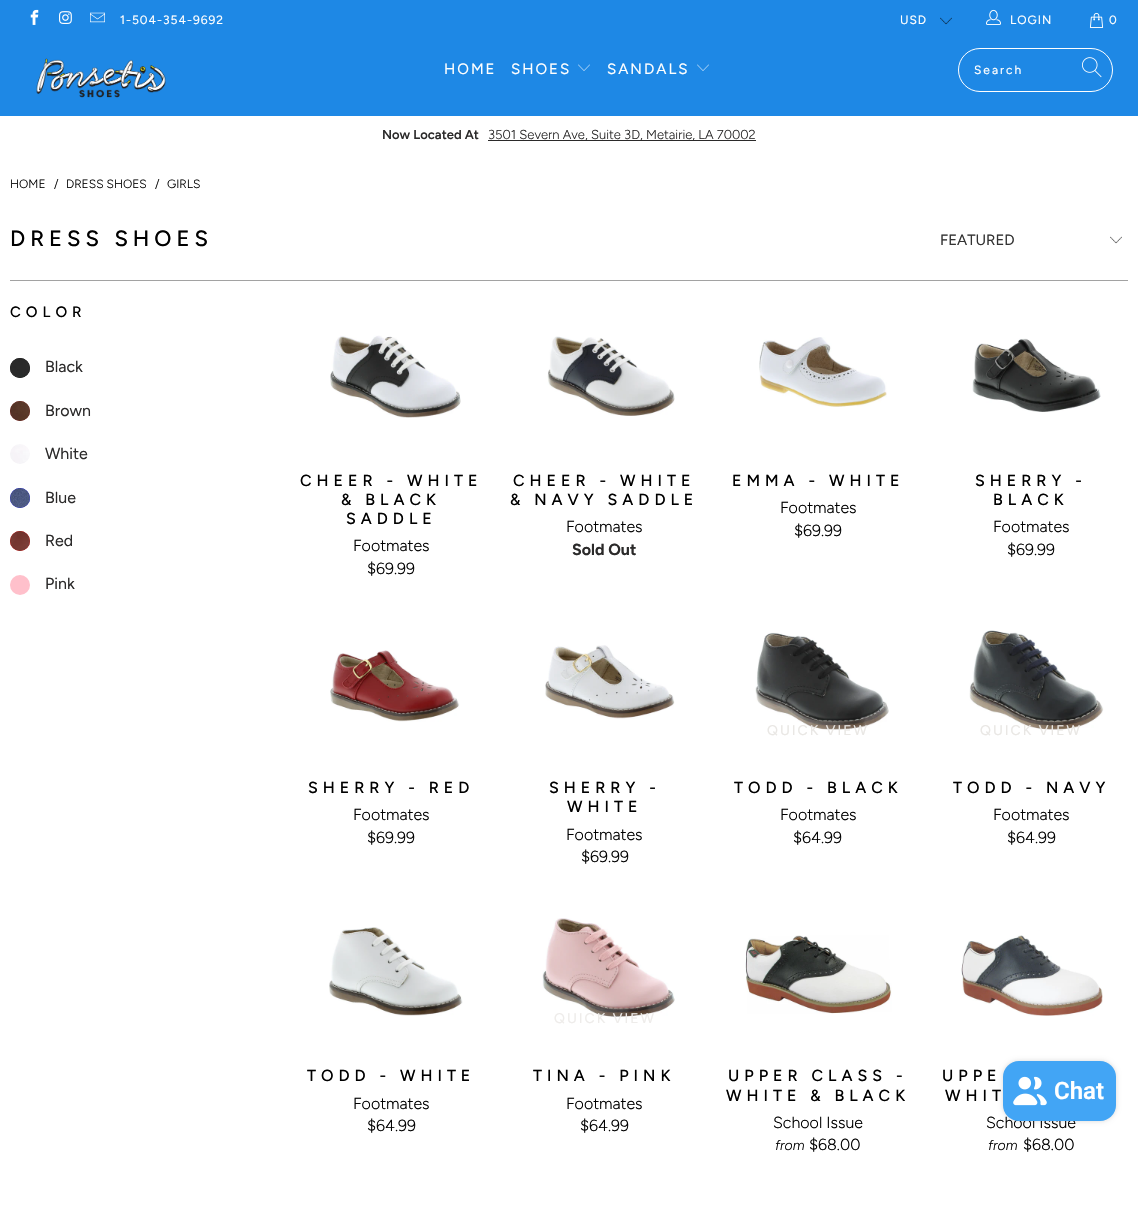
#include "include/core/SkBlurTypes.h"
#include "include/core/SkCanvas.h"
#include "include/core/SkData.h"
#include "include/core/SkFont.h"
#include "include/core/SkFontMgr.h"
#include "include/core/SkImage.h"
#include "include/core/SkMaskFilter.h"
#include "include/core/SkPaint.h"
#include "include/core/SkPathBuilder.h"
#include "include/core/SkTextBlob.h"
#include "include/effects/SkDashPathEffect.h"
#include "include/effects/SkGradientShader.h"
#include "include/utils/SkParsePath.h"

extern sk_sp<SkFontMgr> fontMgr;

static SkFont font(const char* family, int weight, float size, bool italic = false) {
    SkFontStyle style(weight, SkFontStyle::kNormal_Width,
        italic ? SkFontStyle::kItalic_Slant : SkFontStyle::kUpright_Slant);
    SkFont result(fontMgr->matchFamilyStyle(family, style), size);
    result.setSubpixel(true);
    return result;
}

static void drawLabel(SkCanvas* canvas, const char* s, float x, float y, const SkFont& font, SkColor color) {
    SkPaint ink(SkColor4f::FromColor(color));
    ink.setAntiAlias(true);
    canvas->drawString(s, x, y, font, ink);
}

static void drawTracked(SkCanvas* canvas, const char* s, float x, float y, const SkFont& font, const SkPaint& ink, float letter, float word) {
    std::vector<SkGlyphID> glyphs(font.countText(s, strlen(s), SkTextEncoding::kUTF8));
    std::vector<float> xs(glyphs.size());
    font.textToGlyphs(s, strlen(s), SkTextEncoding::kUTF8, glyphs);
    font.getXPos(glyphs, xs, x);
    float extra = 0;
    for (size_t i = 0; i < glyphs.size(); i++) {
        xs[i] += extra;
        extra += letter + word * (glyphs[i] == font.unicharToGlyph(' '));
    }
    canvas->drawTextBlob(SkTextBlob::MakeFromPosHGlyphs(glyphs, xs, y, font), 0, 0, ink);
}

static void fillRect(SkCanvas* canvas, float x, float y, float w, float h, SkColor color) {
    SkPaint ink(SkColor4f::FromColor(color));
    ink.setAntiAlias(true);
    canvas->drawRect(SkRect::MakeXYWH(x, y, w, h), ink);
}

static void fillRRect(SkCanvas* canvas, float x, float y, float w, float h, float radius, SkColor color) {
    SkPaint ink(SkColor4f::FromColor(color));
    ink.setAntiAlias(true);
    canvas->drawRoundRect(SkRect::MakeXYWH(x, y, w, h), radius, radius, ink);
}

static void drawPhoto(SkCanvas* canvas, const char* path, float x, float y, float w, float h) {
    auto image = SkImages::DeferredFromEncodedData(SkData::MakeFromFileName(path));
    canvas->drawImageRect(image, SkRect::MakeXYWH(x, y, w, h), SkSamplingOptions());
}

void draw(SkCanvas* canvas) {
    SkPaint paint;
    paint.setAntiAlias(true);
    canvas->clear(0xFFFFFFFF);
    fillRect(canvas, 0, 0, 1138, 116, 0xFF1E88E5);
    drawPhoto(canvas, "assets/img1.png", 30, 9, 9, 16);
    drawPhoto(canvas, "assets/img2.png", 59, 11, 13, 13);
    drawPhoto(canvas, "assets/img3.png", 90, 12, 15, 11);
    SkFont font1 = font("Figtree", 400, 12);
    paint.setColor(0xFFFFFFFF);
    drawTracked(canvas, "1-504-354-9692", 120, 24, font1, paint, 1, 0);
    drawPhoto(canvas, "assets/img4.png", 940, 17, 12, 8);
    drawTracked(canvas, "USD", 900, 24, font1, paint, 1, 0);
    drawPhoto(canvas, "assets/img5.png", 986, 9, 15, 16);
    drawTracked(canvas, "LOGIN", 1010, 24, font1, paint, 1, 0);
    drawPhoto(canvas, "assets/img6.png", 1089, 13, 15, 15);
    drawTracked(canvas, "0", 1109, 24, font1, paint, 1, 0);
    drawPhoto(canvas, "assets/img7.png", 36, 58, 130, 40);
    SkFont font2 = font("Figtree", 400, 15);
    drawTracked(canvas, "HOME", 444, 74, font2, paint, 2, 0);
    drawTracked(canvas, "SHOES", 511, 74, font2, paint, 2, 0);
    drawPhoto(canvas, "assets/img8.png", 578, 64, 12, 7);
    drawTracked(canvas, "SANDALS", 607, 74, font2, paint, 2, 0);
    drawPhoto(canvas, "assets/img8.png", 697, 64, 12, 7);
    paint.setStroke(true);
    paint.setStrokeWidth(1);
    canvas->drawRoundRect(SkRect::MakeXYWH(958.5f, 48.5f, 154, 43), 21.5f, 21.5f, paint);
    paint.setStroke(false);
    drawTracked(canvas, "Search", 974, 74, font1, paint, 2, 0);
    drawPhoto(canvas, "assets/img9.png", 1082, 57, 20, 21);
    SkFont font3 = font("Figtree", 600, 13);
    drawLabel(canvas, "Now Located At", 382, 139, font3, 0xFF2B2A2A);
    fillRect(canvas, 488, 140, 268, 1, 0xFF2B2A2A);
    SkFont font4 = font("Figtree", 300, 13);
    drawLabel(canvas, "3501 Severn Ave, Suite 3D, Metairie, LA 70002", 488, 139, font4, 0xFF2B2A2A);
    SkFont font5 = font("Figtree", 300, 12);
    drawLabel(canvas, "HOME", 10, 188, font5, 0xFF000000);
    drawLabel(canvas, "/", 54, 188, font5, 0xFF000000);
    drawLabel(canvas, "DRESS SHOES", 66, 188, font5, 0xFF000000);
    drawLabel(canvas, "/", 155, 188, font5, 0xFF000000);
    drawLabel(canvas, "GIRLS", 167, 188, font5, 0xFF000000);
    SkFont font6 = font("Figtree", 500, 22);
    paint.setColor(0xFF000000);
    drawTracked(canvas, "DRESS SHOES", 10, 246, font6, paint, 5, 0);
    drawPhoto(canvas, "assets/img10.png", 1110, 236, 12, 8);
    drawLabel(canvas, "FEATURED", 940, 245, font2, 0xFF333333);
    fillRect(canvas, 10, 280, 1118, 1, 0xFFA2A2A2);
    SkFont font7 = font("Figtree", 500, 15);
    drawTracked(canvas, "COLOR", 10, 317, font7, paint, 5, 0);
    canvas->drawCircle(20, 368, 10, paint);
    drawPhoto(canvas, "assets/img11.png", 10, 358, 20, 20);
    SkFont font8 = font("Figtree", 400, 16);
    drawLabel(canvas, "Black", 45, 372, font8, 0xFF2B2A2A);
    paint.setColor(0xFFA52A2A);
    canvas->drawCircle(20, 411, 10, paint);
    drawPhoto(canvas, "assets/img12.png", 10, 401, 20, 20);
    drawLabel(canvas, "Brown", 45, 416, font8, 0xFF2B2A2A);
    drawPhoto(canvas, "assets/img13.png", 10, 444, 20, 20);
    drawLabel(canvas, "White", 45, 459, font8, 0xFF2B2A2A);
    paint.setColor(0xFF0000FF);
    canvas->drawCircle(20, 498, 10, paint);
    drawPhoto(canvas, "assets/img14.png", 10, 488, 20, 20);
    drawLabel(canvas, "Blue", 45, 503, font8, 0xFF2B2A2A);
    paint.setColor(0xFFFF0000);
    canvas->drawCircle(20, 541, 10, paint);
    drawPhoto(canvas, "assets/img15.png", 10, 531, 20, 20);
    drawLabel(canvas, "Red", 45, 546, font8, 0xFF2B2A2A);
    paint.setColor(0xFFFFC0CB);
    canvas->drawCircle(20, 585, 10, paint);
    drawLabel(canvas, "Pink", 45, 589, font8, 0xFF2B2A2A);
    drawPhoto(canvas, "assets/img16.png", 330, 335, 131, 83);
    SkFont font9 = font("Figtree", 500, 16);
    paint.setColor(0xFF000000);
    drawTracked(canvas, "CHEER - WHITE", 300, 486, font9, paint, 5, 0);
    drawTracked(canvas, "& BLACK", 341, 505, font9, paint, 5, 0);
    drawTracked(canvas, "SADDLE", 346, 524, font9, paint, 5, 0);
    SkFont font10 = font("Figtree", 300, 16);
    drawLabel(canvas, "Footmates", 353, 551, font10, 0xFF000000);
    drawLabel(canvas, "$69.99", 367, 574, font10, 0xFF000000);
    drawPhoto(canvas, "assets/img17.png", 547, 336, 128, 80);
    drawTracked(canvas, "CHEER - WHITE", 513, 486, font9, paint, 5, 0);
    drawTracked(canvas, "& NAVY SADDLE", 510, 505, font9, paint, 5, 0);
    drawLabel(canvas, "Footmates", 566, 532, font10, 0xFF000000);
    SkFont font11 = font("Figtree", 700, 16);
    drawLabel(canvas, "Sold Out", 572, 555, font11, 0xFF2B2A2A);
    drawPhoto(canvas, "assets/img18.png", 759, 337, 128, 70);
    drawTracked(canvas, "EMMA - WHITE", 732, 486, font9, paint, 5, 0);
    drawLabel(canvas, "Footmates", 780, 513, font10, 0xFF000000);
    drawLabel(canvas, "$69.99", 794, 536, font10, 0xFF000000);
    drawPhoto(canvas, "assets/img19.png", 972, 338, 129, 74);
    drawTracked(canvas, "SHERRY -", 975, 486, font9, paint, 5, 0);
    drawTracked(canvas, "BLACK", 993, 505, font9, paint, 5, 0);
    drawLabel(canvas, "Footmates", 993, 532, font10, 0xFF000000);
    drawLabel(canvas, "$69.99", 1007, 555, font10, 0xFF000000);
    drawPhoto(canvas, "assets/img20.png", 330, 650, 130, 72);
    drawTracked(canvas, "SHERRY - RED", 308, 793, font9, paint, 5, 0);
    drawLabel(canvas, "Footmates", 353, 820, font10, 0xFF000000);
    drawLabel(canvas, "$69.99", 367, 843, font10, 0xFF000000);
    drawPhoto(canvas, "assets/img21.png", 545, 645, 130, 74);
    drawTracked(canvas, "SHERRY -", 549, 793, font9, paint, 5, 0);
    drawTracked(canvas, "WHITE", 567, 812, font9, paint, 5, 0);
    drawLabel(canvas, "Footmates", 566, 840, font10, 0xFF000000);
    drawLabel(canvas, "$69.99", 581, 862, font10, 0xFF000000);
    drawPhoto(canvas, "assets/img22.png", 755, 632, 134, 98);
    SkFont font12 = font("Figtree", 400, 14);
    paint.setColor(0xFFE9E7E4);
    drawTracked(canvas, "QUICK VIEW", 767, 735, font12, paint, 2, 0);
    paint.setColor(0xFF000000);
    drawTracked(canvas, "TODD - BLACK", 734, 793, font9, paint, 5, 0);
    drawLabel(canvas, "Footmates", 780, 820, font10, 0xFF000000);
    drawLabel(canvas, "$64.99", 793, 843, font10, 0xFF000000);
    drawPhoto(canvas, "assets/img23.png", 969, 630, 135, 100);
    paint.setColor(0xFFE9E7E4);
    drawTracked(canvas, "QUICK VIEW", 980, 735, font12, paint, 2, 0);
    paint.setColor(0xFF000000);
    drawTracked(canvas, "TODD - NAVY", 953, 793, font9, paint, 5, 0);
    drawLabel(canvas, "Footmates", 993, 820, font10, 0xFF000000);
    drawLabel(canvas, "$64.99", 1007, 843, font10, 0xFF000000);
    drawPhoto(canvas, "assets/img24.png", 329, 927, 134, 89);
    drawTracked(canvas, "TODD - WHITE", 307, 1081, font9, paint, 5, 0);
    drawLabel(canvas, "Footmates", 353, 1109, font10, 0xFF000000);
    drawLabel(canvas, "$64.99", 367, 1131, font10, 0xFF000000);
    drawPhoto(canvas, "assets/img25.png", 542, 918, 133, 99);
    paint.setColor(0xFFEEECEA);
    drawTracked(canvas, "QUICK VIEW", 554, 1023, font12, paint, 2, 0);
    paint.setColor(0xFF000000);
    drawTracked(canvas, "TINA - PINK", 533, 1081, font9, paint, 5, 0);
    drawLabel(canvas, "Footmates", 566, 1109, font10, 0xFF000000);
    drawLabel(canvas, "$64.99", 580, 1131, font10, 0xFF000000);
    drawPhoto(canvas, "assets/img26.png", 745, 935, 147, 79);
    drawTracked(canvas, "UPPER CLASS -", 728, 1081, font9, paint, 5, 0);
    drawTracked(canvas, "WHITE & BLACK", 726, 1101, font9, paint, 5, 0);
    drawLabel(canvas, "School Issue", 773, 1128, font10, 0xFF000000);
    SkFont font13 = font("Figtree", 300, 14, true);
    drawLabel(canvas, "from", 775, 1150, font13, 0xFF000000);
    drawLabel(canvas, "$68.00", 809, 1150, font10, 0xFF000000);
    drawPhoto(canvas, "assets/img27.png", 961, 935, 142, 81);
    drawTracked(canvas, "UPPE", 942, 1081, font9, paint, 5, 0);
    drawTracked(canvas, "WHIT", 945, 1101, font9, paint, 5, 0);
    drawLabel(canvas, "School Issue", 986, 1128, font10, 0xFF000000);
    drawLabel(canvas, "from", 988, 1150, font13, 0xFF000000);
    drawLabel(canvas, "$68.00", 1023, 1150, font10, 0xFF000000);
    paint.setColor(0x26000000);
    paint.setMaskFilter(SkMaskFilter::MakeBlur(kNormal_SkBlurStyle, 2.5f));
    canvas->drawRoundRect(SkRect::MakeXYWH(1003, 1061, 113, 60), 16, 16, paint);
    paint.setMaskFilter(nullptr);
    fillRRect(canvas, 1003, 1061, 113, 60, 16, 0xFF42A5F5);
    drawPhoto(canvas, "assets/img28.png", 1013, 1076, 34, 30);
    SkFont font14 = font("Roboto", 600, 24);
    drawLabel(canvas, "Chat", 1054, 1099, font14, 0xFFFFFFFF);
}
